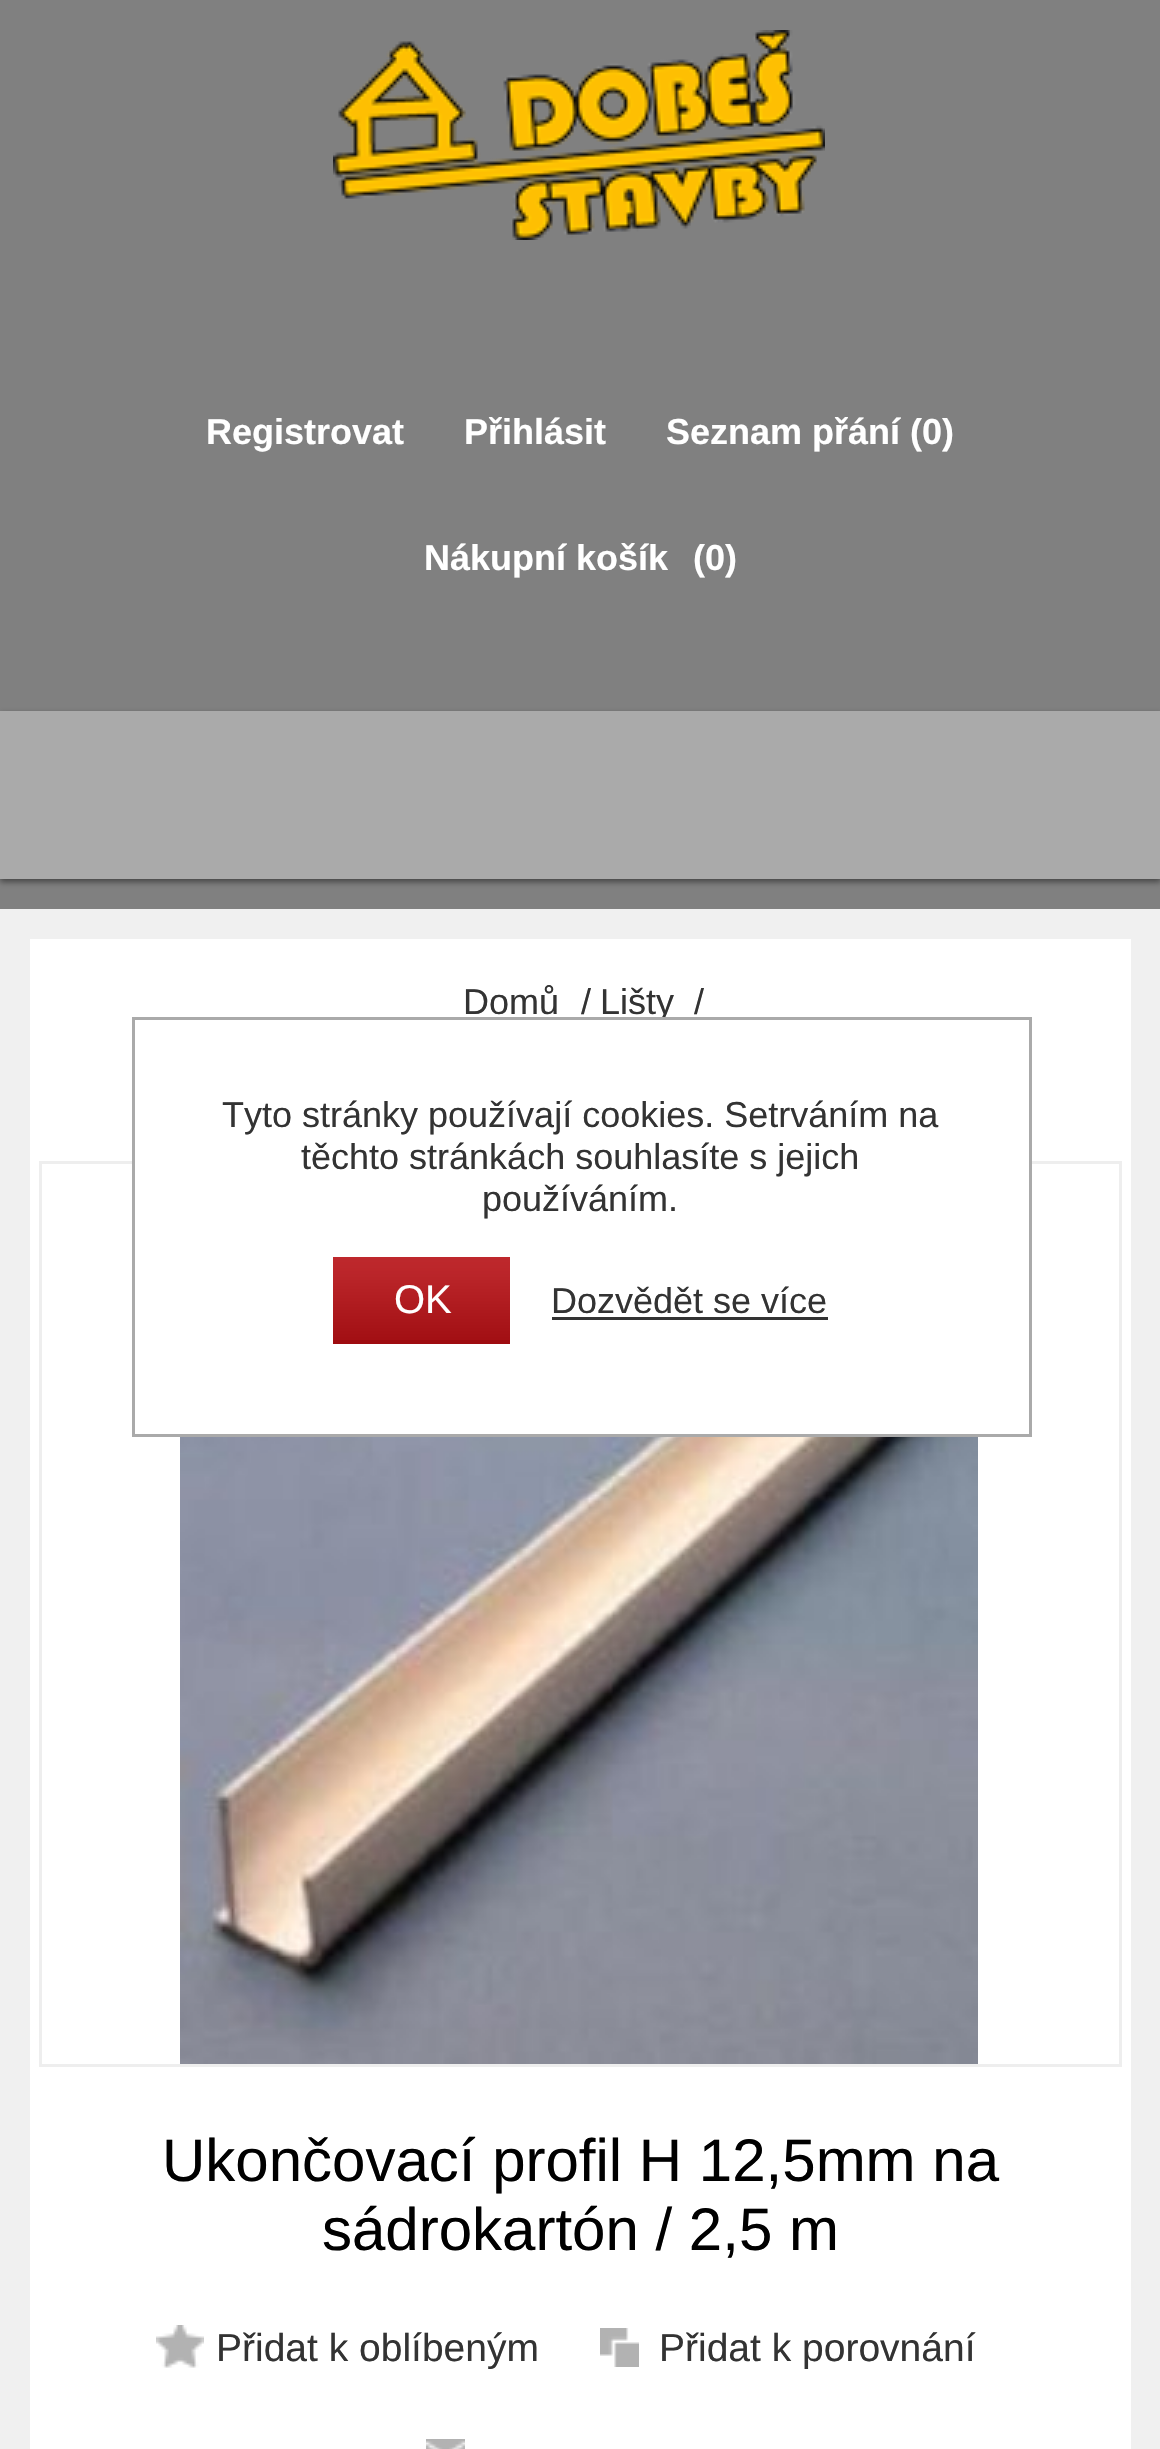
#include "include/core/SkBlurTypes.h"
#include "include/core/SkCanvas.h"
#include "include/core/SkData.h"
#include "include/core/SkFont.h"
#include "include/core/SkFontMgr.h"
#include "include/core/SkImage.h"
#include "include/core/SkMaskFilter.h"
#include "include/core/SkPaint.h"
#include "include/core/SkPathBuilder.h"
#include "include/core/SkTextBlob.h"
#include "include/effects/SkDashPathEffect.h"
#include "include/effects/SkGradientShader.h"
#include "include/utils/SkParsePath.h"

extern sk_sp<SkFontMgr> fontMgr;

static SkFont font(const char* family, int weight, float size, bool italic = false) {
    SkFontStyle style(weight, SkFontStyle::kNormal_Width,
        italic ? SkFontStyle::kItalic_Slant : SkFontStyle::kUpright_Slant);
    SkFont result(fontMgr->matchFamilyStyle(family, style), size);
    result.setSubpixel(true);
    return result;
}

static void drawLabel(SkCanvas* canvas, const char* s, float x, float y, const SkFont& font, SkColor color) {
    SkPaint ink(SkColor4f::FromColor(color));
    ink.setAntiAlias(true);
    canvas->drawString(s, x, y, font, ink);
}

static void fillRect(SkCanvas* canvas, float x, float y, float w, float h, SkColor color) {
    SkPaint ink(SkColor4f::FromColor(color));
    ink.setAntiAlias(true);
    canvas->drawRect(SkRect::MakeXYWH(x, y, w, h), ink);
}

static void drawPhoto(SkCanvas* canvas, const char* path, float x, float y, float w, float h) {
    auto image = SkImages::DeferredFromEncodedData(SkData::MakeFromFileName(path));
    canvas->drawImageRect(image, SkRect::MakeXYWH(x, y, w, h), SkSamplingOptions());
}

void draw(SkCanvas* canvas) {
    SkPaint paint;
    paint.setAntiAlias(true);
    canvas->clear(0xFFF0F0F0);
    fillRect(canvas, 0, 0, 1160, 909, 0xFF808080);
    drawPhoto(canvas, "assets/img1.png", 333, 30, 492, 210);
    SkFont font1 = font("Liberation Sans", 700, 36);
    drawLabel(canvas, "Registrovat", 206, 444, font1, 0xFFFFFFFF);
    drawLabel(canvas, "Přihlásit", 464, 444, font1, 0xFFFFFFFF);
    drawLabel(canvas, "Seznam přání (0)", 666, 444, font1, 0xFFFFFFFF);
    drawLabel(canvas, "Nákupní košík", 424, 570, font1, 0xFFFFFFFF);
    drawLabel(canvas, "(0)", 693, 570, font1, 0xFFFFFFFF);
    paint.setColor(0xFF454545);
    paint.setMaskFilter(SkMaskFilter::MakeBlur(kNormal_SkBlurStyle, 3));
    canvas->drawRect(SkRect::MakeXYWH(0, 714, 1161, 168), paint);
    paint.setMaskFilter(nullptr);
    fillRect(canvas, 0, 711, 1160, 168, 0xFFAAAAAA);
    fillRect(canvas, 30, 939, 1101, 1510, 0xFFFFFFFF);
    SkFont font2 = font("Liberation Sans", 400, 36);
    drawLabel(canvas, "Domů", 463, 1014, font2, 0xFF333333);
    drawLabel(canvas, "/", 581, 1014, font2, 0xFF333333);
    drawLabel(canvas, "Lišty", 600, 1014, font2, 0xFF333333);
    drawLabel(canvas, "/", 694, 1014, font2, 0xFF333333);
    paint.setStroke(true);
    paint.setStrokeWidth(3);
    paint.setColor(0xFFEEEEEE);
    canvas->drawRect(SkRect::MakeXYWH(40.5f, 1162.5f, 1080, 903), paint);
    drawPhoto(canvas, "assets/img2.png", 180, 1437, 798, 627);
    SkFont font3 = font("Liberation Sans", 400, 60);
    drawLabel(canvas, "Ukončovací profil H 12,5mm na", 162, 2181, font3, 0xFF000000);
    drawLabel(canvas, "sádrokartón / 2,5 m", 322, 2250, font3, 0xFF000000);
    drawPhoto(canvas, "assets/img3.png", 156, 2325, 48, 43);
    SkFont font4 = font("Liberation Sans", 400, 39);
    drawLabel(canvas, "Přidat k oblíbeným", 216, 2361, font4, 0xFF333333);
    drawPhoto(canvas, "assets/img4.png", 600, 2328, 39, 39);
    drawLabel(canvas, "Přidat k porovnání", 659, 2361, font4, 0xFF333333);
    drawPhoto(canvas, "assets/img5.png", 426, 2439, 39, 10);
    fillRect(canvas, 135, 1020, 894, 144, 0xFFFFFFFF);
    paint.setColor(0xFFAAAAAA);
    canvas->drawRect(SkRect::MakeXYWH(133.5f, 1018.5f, 897, 417), paint);
    drawLabel(canvas, "Tyto stránky používají cookies. Setrváním na", 222, 1127, font2, 0xFF333333);
    drawLabel(canvas, "těchto stránkách souhlasíte s jejich", 301, 1169, font2, 0xFF333333);
    drawLabel(canvas, "používáním.", 482, 1211, font2, 0xFF333333);
    fillRect(canvas, 333, 1340, 177, 4, 0xFF9E0B0F);
    drawPhoto(canvas, "assets/img6.png", 333, 1257, 177, 83);
    SkFont font5 = font("Liberation Sans", 400, 40);
    drawLabel(canvas, "OK", 394, 1313, font5, 0xFFFFFFFF);
    drawLabel(canvas, "Dozvědět se více", 551, 1313, font2, 0xFF333333);
    fillRect(canvas, 552, 1317, 276, 3, 0xFF333333);
}
